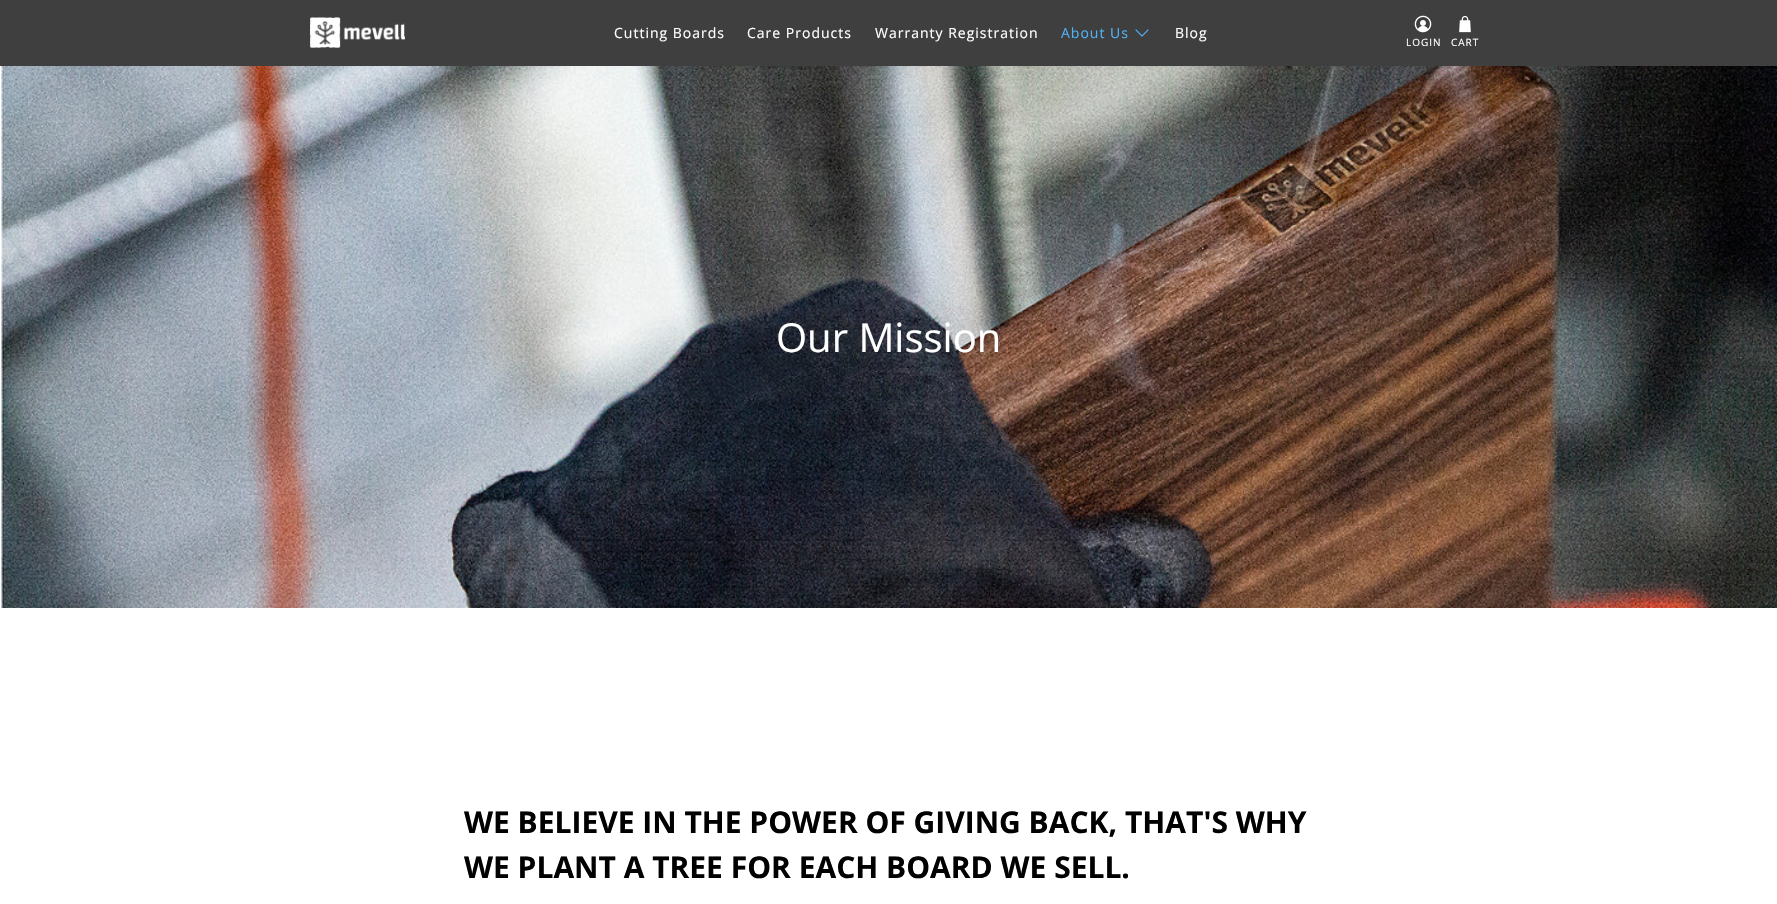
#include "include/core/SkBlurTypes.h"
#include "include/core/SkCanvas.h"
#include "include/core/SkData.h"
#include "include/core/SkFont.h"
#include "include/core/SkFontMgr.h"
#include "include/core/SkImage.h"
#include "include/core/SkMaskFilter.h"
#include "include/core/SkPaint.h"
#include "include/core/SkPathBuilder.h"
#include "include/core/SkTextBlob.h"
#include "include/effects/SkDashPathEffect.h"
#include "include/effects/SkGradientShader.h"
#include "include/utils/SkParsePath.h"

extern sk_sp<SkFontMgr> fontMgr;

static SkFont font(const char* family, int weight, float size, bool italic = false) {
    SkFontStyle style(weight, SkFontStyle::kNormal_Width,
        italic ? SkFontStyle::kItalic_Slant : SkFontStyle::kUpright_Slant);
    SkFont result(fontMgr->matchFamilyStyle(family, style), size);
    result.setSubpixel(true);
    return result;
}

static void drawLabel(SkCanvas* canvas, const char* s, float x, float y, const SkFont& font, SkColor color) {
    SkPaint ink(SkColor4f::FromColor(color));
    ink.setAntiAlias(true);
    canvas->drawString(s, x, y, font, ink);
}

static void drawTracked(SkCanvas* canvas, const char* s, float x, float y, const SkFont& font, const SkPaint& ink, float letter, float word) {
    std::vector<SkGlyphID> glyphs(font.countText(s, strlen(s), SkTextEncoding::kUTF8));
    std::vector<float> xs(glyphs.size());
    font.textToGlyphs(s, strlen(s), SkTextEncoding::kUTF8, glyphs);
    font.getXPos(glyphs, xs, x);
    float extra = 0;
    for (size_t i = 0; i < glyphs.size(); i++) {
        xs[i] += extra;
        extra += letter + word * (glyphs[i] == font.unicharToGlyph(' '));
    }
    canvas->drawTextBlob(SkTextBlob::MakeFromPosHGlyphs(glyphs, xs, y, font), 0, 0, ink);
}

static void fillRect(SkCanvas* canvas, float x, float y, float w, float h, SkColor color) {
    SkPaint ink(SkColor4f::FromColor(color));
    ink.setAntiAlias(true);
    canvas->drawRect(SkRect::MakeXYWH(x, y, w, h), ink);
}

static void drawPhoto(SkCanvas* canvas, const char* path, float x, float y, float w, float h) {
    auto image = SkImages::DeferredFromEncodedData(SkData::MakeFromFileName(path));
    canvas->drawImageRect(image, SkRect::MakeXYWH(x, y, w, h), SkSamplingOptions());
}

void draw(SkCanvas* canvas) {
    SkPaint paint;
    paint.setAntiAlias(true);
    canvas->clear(0xFFFFFFFF);
    fillRect(canvas, 0, 0, 1777, 66, 0xFF3F3F3F);
    drawPhoto(canvas, "assets/img1.png", 310, 17, 95, 31);
    SkFont font1 = font("Open Sans", 400, 14);
    paint.setColor(0xFFFFFFFF);
    drawTracked(canvas, "Cutting Boards", 614, 38, font1, paint, 1, 0);
    drawTracked(canvas, "Care Products", 747, 38, font1, paint, 1, 0);
    drawTracked(canvas, "Warranty Registration", 875, 38, font1, paint, 1, 0);
    paint.setColor(0xFF51B2F5);
    drawTracked(canvas, "About Us", 1061, 38, font1, paint, 1, 0);
    drawPhoto(canvas, "assets/img2.png", 1135, 29, 14, 8);
    paint.setColor(0xFFFFFFFF);
    drawTracked(canvas, "Blog", 1175, 38, font1, paint, 1, 0);
    drawPhoto(canvas, "assets/img3.png", 1414, 15, 18, 18);
    SkFont font2 = font("Open Sans", 400, 10);
    drawTracked(canvas, "LOGIN", 1406, 46, font2, paint, 1, 0);
    drawPhoto(canvas, "assets/img4.png", 1459, 15, 12, 18);
    drawTracked(canvas, "CART", 1451, 46, font2, paint, 1, 0);
    drawPhoto(canvas, "assets/img5.png", 0, 66, 1777, 542);
    SkFont font3 = font("Open Sans", 400, 40);
    drawLabel(canvas, "Our Mission", 776, 352, font3, 0xFFFFFFFF);
    SkFont font4 = font("Open Sans", 700, 30);
    drawLabel(canvas, "WE BELIEVE IN THE POWER OF GIVING BACK, THAT'S WHY", 464, 833, font4, 0xFF000000);
    drawLabel(canvas, "WE PLANT A TREE FOR EACH BOARD WE SELL.", 464, 878, font4, 0xFF000000);
}
